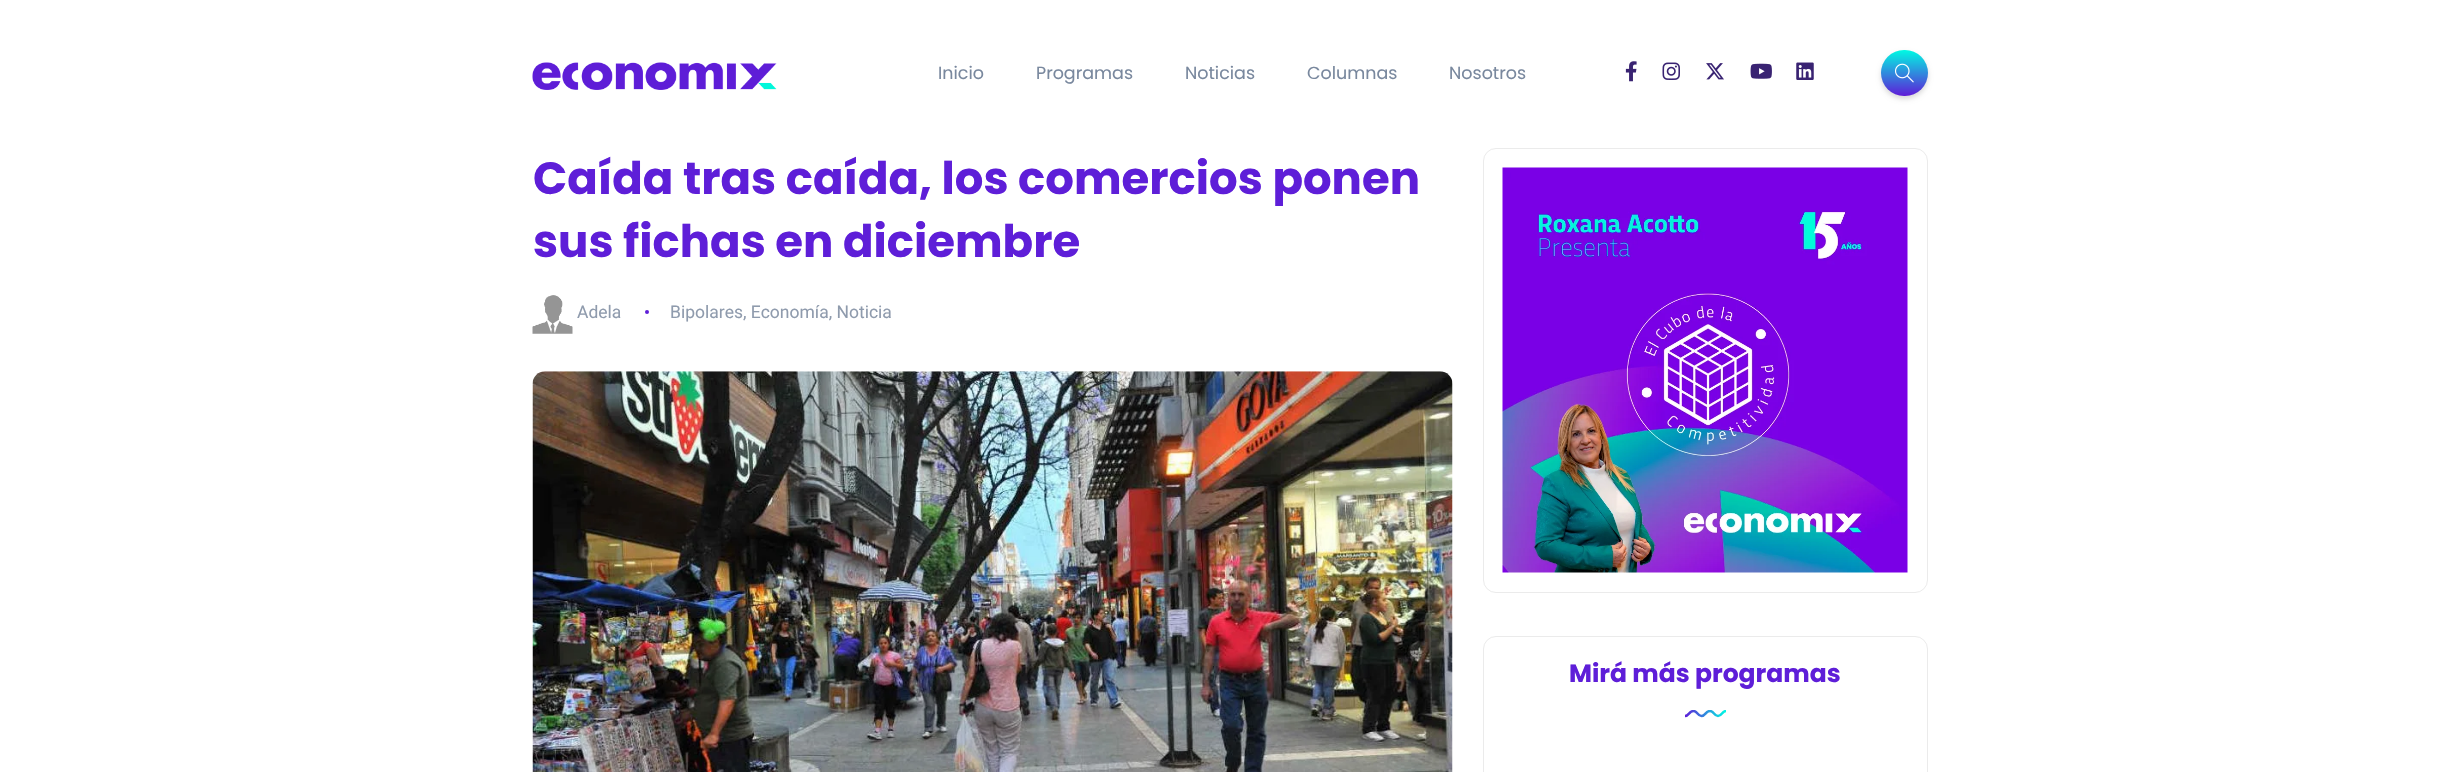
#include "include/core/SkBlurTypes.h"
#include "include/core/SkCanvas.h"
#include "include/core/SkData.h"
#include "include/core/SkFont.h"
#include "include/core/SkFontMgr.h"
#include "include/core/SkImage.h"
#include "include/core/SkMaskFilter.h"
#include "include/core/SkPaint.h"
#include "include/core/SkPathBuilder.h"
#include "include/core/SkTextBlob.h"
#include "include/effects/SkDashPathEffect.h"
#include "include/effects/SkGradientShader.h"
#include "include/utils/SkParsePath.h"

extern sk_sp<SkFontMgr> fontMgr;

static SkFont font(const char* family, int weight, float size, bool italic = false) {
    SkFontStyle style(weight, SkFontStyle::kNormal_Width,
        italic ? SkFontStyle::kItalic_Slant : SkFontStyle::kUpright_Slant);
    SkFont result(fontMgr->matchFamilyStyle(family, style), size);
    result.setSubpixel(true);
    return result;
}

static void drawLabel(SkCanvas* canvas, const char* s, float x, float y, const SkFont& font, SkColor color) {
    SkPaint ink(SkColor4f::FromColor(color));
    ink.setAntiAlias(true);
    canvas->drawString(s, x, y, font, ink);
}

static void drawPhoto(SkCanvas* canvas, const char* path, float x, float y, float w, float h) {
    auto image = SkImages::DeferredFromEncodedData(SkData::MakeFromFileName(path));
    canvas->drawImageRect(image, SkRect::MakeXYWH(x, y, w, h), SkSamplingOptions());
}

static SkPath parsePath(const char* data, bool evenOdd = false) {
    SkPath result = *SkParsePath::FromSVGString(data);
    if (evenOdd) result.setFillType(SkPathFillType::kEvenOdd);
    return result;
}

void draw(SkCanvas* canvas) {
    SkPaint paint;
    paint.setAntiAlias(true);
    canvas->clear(0xFFFFFFFF);
    drawPhoto(canvas, "assets/img1.png", 532, 62, 245, 28);
    SkFont font1 = font("Poppins", 400, 17.5f);
    drawLabel(canvas, "Inicio", 938, 79, font1, 0xFF79889E);
    drawLabel(canvas, "Programas", 1036, 79, font1, 0xFF79889E);
    drawLabel(canvas, "Noticias", 1185, 79, font1, 0xFF79889E);
    drawLabel(canvas, "Columnas", 1307, 79, font1, 0xFF79889E);
    drawLabel(canvas, "Nosotros", 1449, 79, font1, 0xFF79889E);
    drawPhoto(canvas, "assets/img2.png", 1625, 61, 12, 21);
    drawPhoto(canvas, "assets/img3.png", 1662, 62, 18, 18);
    drawPhoto(canvas, "assets/img4.png", 1706, 63, 18, 17);
    drawPhoto(canvas, "assets/img5.png", 1750, 63, 22, 16);
    drawPhoto(canvas, "assets/img6.png", 1796, 62, 18, 18);
    paint.setColor(0x26000000);
    paint.setMaskFilter(SkMaskFilter::MakeBlur(kNormal_SkBlurStyle, 2.5f));
    canvas->drawRoundRect(SkRect::MakeXYWH(1881, 53, 47, 46), 23, 23, paint);
    paint.setMaskFilter(nullptr);
    {
        const SkColor colors[] = {0xFF00FAE3, 0xFF5E1ED8, 0xFF00FAE3};
        const float stops[] = {0, 0.51f, 1};
        const SkPoint ends[] = {{1904, 143}, {1904, 50}};
        paint.setShader(SkGradientShader::MakeLinear(ends, colors, stops, 3, SkTileMode::kClamp));
        paint.setAlpha(255);
    }
    canvas->drawRoundRect(SkRect::MakeXYWH(1881, 50, 47, 46), 23, 23, paint);
    drawPhoto(canvas, "assets/img7.png", 1895, 63, 19, 20);
    SkFont font2 = font("Poppins", 700, 45);
    drawLabel(canvas, "Caída tras caída, los comercios ponen", 533, 194, font2, 0xFF5E1ED8);
    drawLabel(canvas, "sus fichas en diciembre", 533, 257, font2, 0xFF5E1ED8);
    drawPhoto(canvas, "assets/img8.png", 532, 295, 41, 39);
    SkFont font3 = font("Roboto", 400, 17.5f);
    drawLabel(canvas, "Adela", 577, 318, font3, 0xFF8F9BAD);
    paint.setShader(nullptr);
    paint.setColor(0xFF5E1ED8);
    canvas->drawCircle(647, 312, 2, paint);
    drawLabel(canvas, "Bipolares, Economía, Noticia", 670, 318, font3, 0xFF8F9BAD);
    drawPhoto(canvas, "assets/img9.png", 532, 371, 921, 401);
    paint.setStroke(true);
    paint.setStrokeWidth(1);
    paint.setColor(0xFFEBEBEB);
    canvas->drawRoundRect(SkRect::MakeXYWH(1483.5f, 148.5f, 444, 444), 12.5f, 12.5f, paint);
    drawPhoto(canvas, "assets/img10.png", 1502, 167, 406, 406);
    canvas->drawRoundRect(SkRect::MakeXYWH(1483.5f, 636.5f, 444, 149), 12.5f, 12.5f, paint);
    SkFont font4 = font("Poppins", 700, 25);
    drawLabel(canvas, "Mirá más programas", 1569, 682, font4, 0xFF5E1ED8);
    canvas->save();
    canvas->clipRect(SkRect::MakeXYWH(1685, 710, 41, 8));
    paint.setStrokeWidth(2.5f);
    {
        const SkColor colors[] = {0xFF5E1ED8, 0xFF00FAE3};
        const float stops[] = {0, 1};
        const SkPoint ends[] = {{1685, 711}, {1726, 711}};
        paint.setShader(SkGradientShader::MakeLinear(ends, colors, stops, 2, SkTileMode::kClamp));
        paint.setAlpha(255);
    }
    canvas->drawPath(parsePath("M1726 711C1722 711 1722 716 1718 716C1714 716 1714 711 1710 711C1705.5 711 1705.5 716 1701.5 716C1697.5 716 1697.5 711 1693.5 711C1689 711 1689 716 1685 716"), paint);
    canvas->restore();
}
